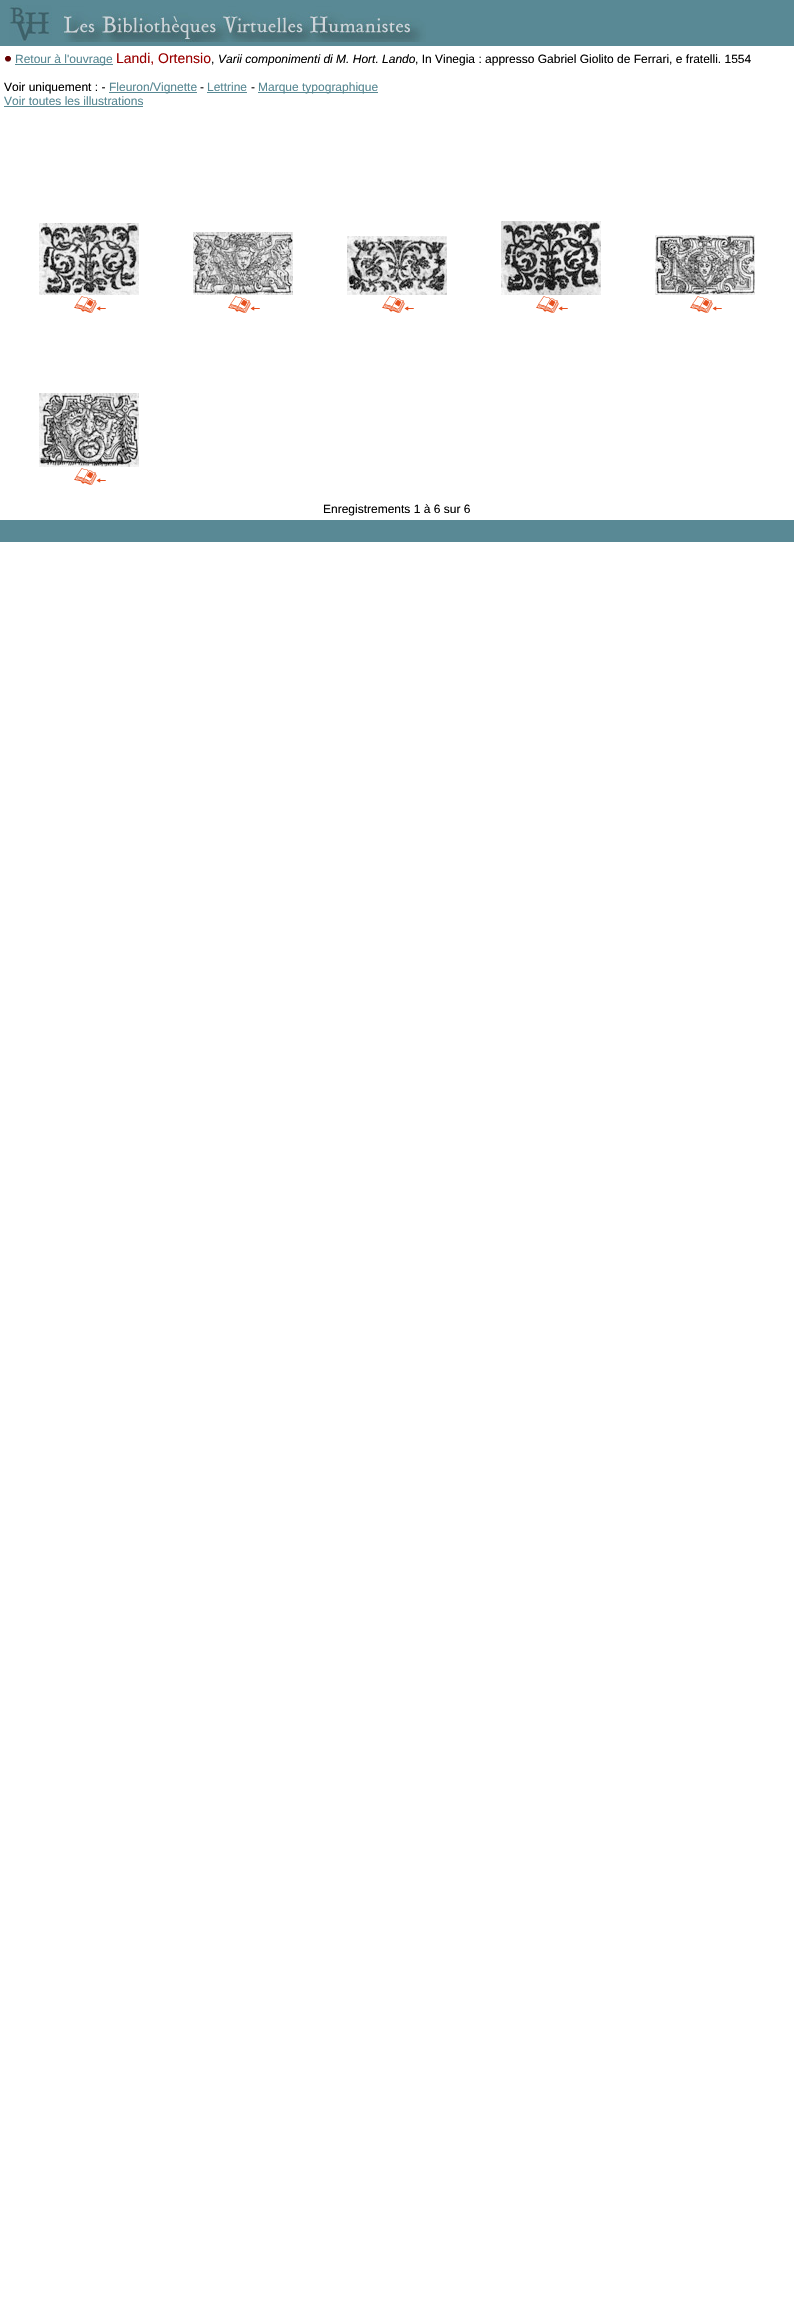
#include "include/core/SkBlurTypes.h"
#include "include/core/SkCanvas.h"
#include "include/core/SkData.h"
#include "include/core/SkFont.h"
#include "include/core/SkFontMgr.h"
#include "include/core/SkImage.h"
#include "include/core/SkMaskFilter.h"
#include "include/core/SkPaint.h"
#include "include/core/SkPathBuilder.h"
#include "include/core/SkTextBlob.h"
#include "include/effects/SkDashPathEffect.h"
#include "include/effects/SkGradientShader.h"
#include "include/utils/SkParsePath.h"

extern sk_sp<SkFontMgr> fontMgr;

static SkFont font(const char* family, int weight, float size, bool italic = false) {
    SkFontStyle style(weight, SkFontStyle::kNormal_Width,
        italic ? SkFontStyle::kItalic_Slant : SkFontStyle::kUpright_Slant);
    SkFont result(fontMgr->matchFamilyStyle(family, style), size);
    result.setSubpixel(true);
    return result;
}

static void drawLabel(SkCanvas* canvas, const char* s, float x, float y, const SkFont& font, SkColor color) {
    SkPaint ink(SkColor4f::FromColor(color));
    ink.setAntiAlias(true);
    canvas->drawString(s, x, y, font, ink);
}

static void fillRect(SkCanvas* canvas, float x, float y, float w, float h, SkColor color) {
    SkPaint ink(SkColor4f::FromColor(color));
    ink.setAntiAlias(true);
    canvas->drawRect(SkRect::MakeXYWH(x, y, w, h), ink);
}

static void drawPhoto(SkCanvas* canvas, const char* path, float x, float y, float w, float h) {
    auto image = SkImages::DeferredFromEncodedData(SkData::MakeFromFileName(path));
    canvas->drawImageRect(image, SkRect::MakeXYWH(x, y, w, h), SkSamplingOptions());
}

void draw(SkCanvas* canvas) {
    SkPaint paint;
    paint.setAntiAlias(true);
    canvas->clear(0xFFFFFFFF);
    fillRect(canvas, 0, 0, 794, 46, 0xFF598995);
    drawPhoto(canvas, "assets/img1.png", 9, 5, 417, 37);
    drawPhoto(canvas, "assets/img2.png", 5, 56, 6, 6);
    fillRect(canvas, 15, 64, 98, 1, 0xFF588893);
    SkFont font1 = font("Liberation Sans", 400, 12);
    drawLabel(canvas, "Retour à l'ouvrage", 15, 63, font1, 0xFF588893);
    SkFont font2 = font("Liberation Sans", 400, 14);
    drawLabel(canvas, "Landi, Ortensio", 116, 63, font2, 0xFF990000);
    SkFont font3 = font("Liberation Sans", 400, 12, true);
    drawLabel(canvas, "Varii componimenti di M. Hort. Lando", 218, 63, font3, 0xFF000000);
    drawLabel(canvas, ", In Vinegia : appresso Gabriel Giolito de Ferrari, e fratelli. 1554", 415, 63, font1, 0xFF000000);
    drawLabel(canvas, ",", 211, 63, font1, 0xFF000000);
    drawLabel(canvas, "Voir uniquement : -", 4, 91, font1, 0xFF000000);
    fillRect(canvas, 109, 92, 88, 1, 0xFF588893);
    drawLabel(canvas, "Fleuron/Vignette", 109, 91, font1, 0xFF588893);
    drawLabel(canvas, "-", 200, 91, font1, 0xFF000000);
    drawLabel(canvas, "Lettrine", 207, 91, font1, 0xFF588893);
    fillRect(canvas, 207, 92, 40, 1, 0xFF588893);
    drawLabel(canvas, "-", 251, 91, font1, 0xFF000000);
    fillRect(canvas, 258, 92, 120, 1, 0xFF588893);
    drawLabel(canvas, "Marque typographique", 258, 91, font1, 0xFF588893);
    drawLabel(canvas, "Voir toutes les illustrations", 4, 105, font1, 0xFF588893);
    fillRect(canvas, 4, 106, 139, 1, 0xFF588893);
    drawPhoto(canvas, "assets/img3.png", 39, 223, 100, 72);
    drawPhoto(canvas, "assets/img4.png", 74, 296, 32, 17);
    drawPhoto(canvas, "assets/img5.png", 193, 232, 100, 63);
    drawPhoto(canvas, "assets/img4.png", 228, 296, 32, 17);
    drawPhoto(canvas, "assets/img6.png", 347, 236, 100, 59);
    drawPhoto(canvas, "assets/img4.png", 382, 296, 32, 17);
    drawPhoto(canvas, "assets/img7.png", 501, 221, 100, 74);
    drawPhoto(canvas, "assets/img4.png", 536, 296, 32, 17);
    drawPhoto(canvas, "assets/img8.png", 655, 235, 100, 60);
    drawPhoto(canvas, "assets/img4.png", 690, 296, 32, 17);
    drawPhoto(canvas, "assets/img9.png", 39, 393, 100, 74);
    drawPhoto(canvas, "assets/img4.png", 74, 468, 32, 17);
    drawLabel(canvas, "Enregistrements 1 à 6 sur 6", 323, 513, font1, 0xFF000000);
    fillRect(canvas, 0, 520, 794, 22, 0xFF598995);
}
